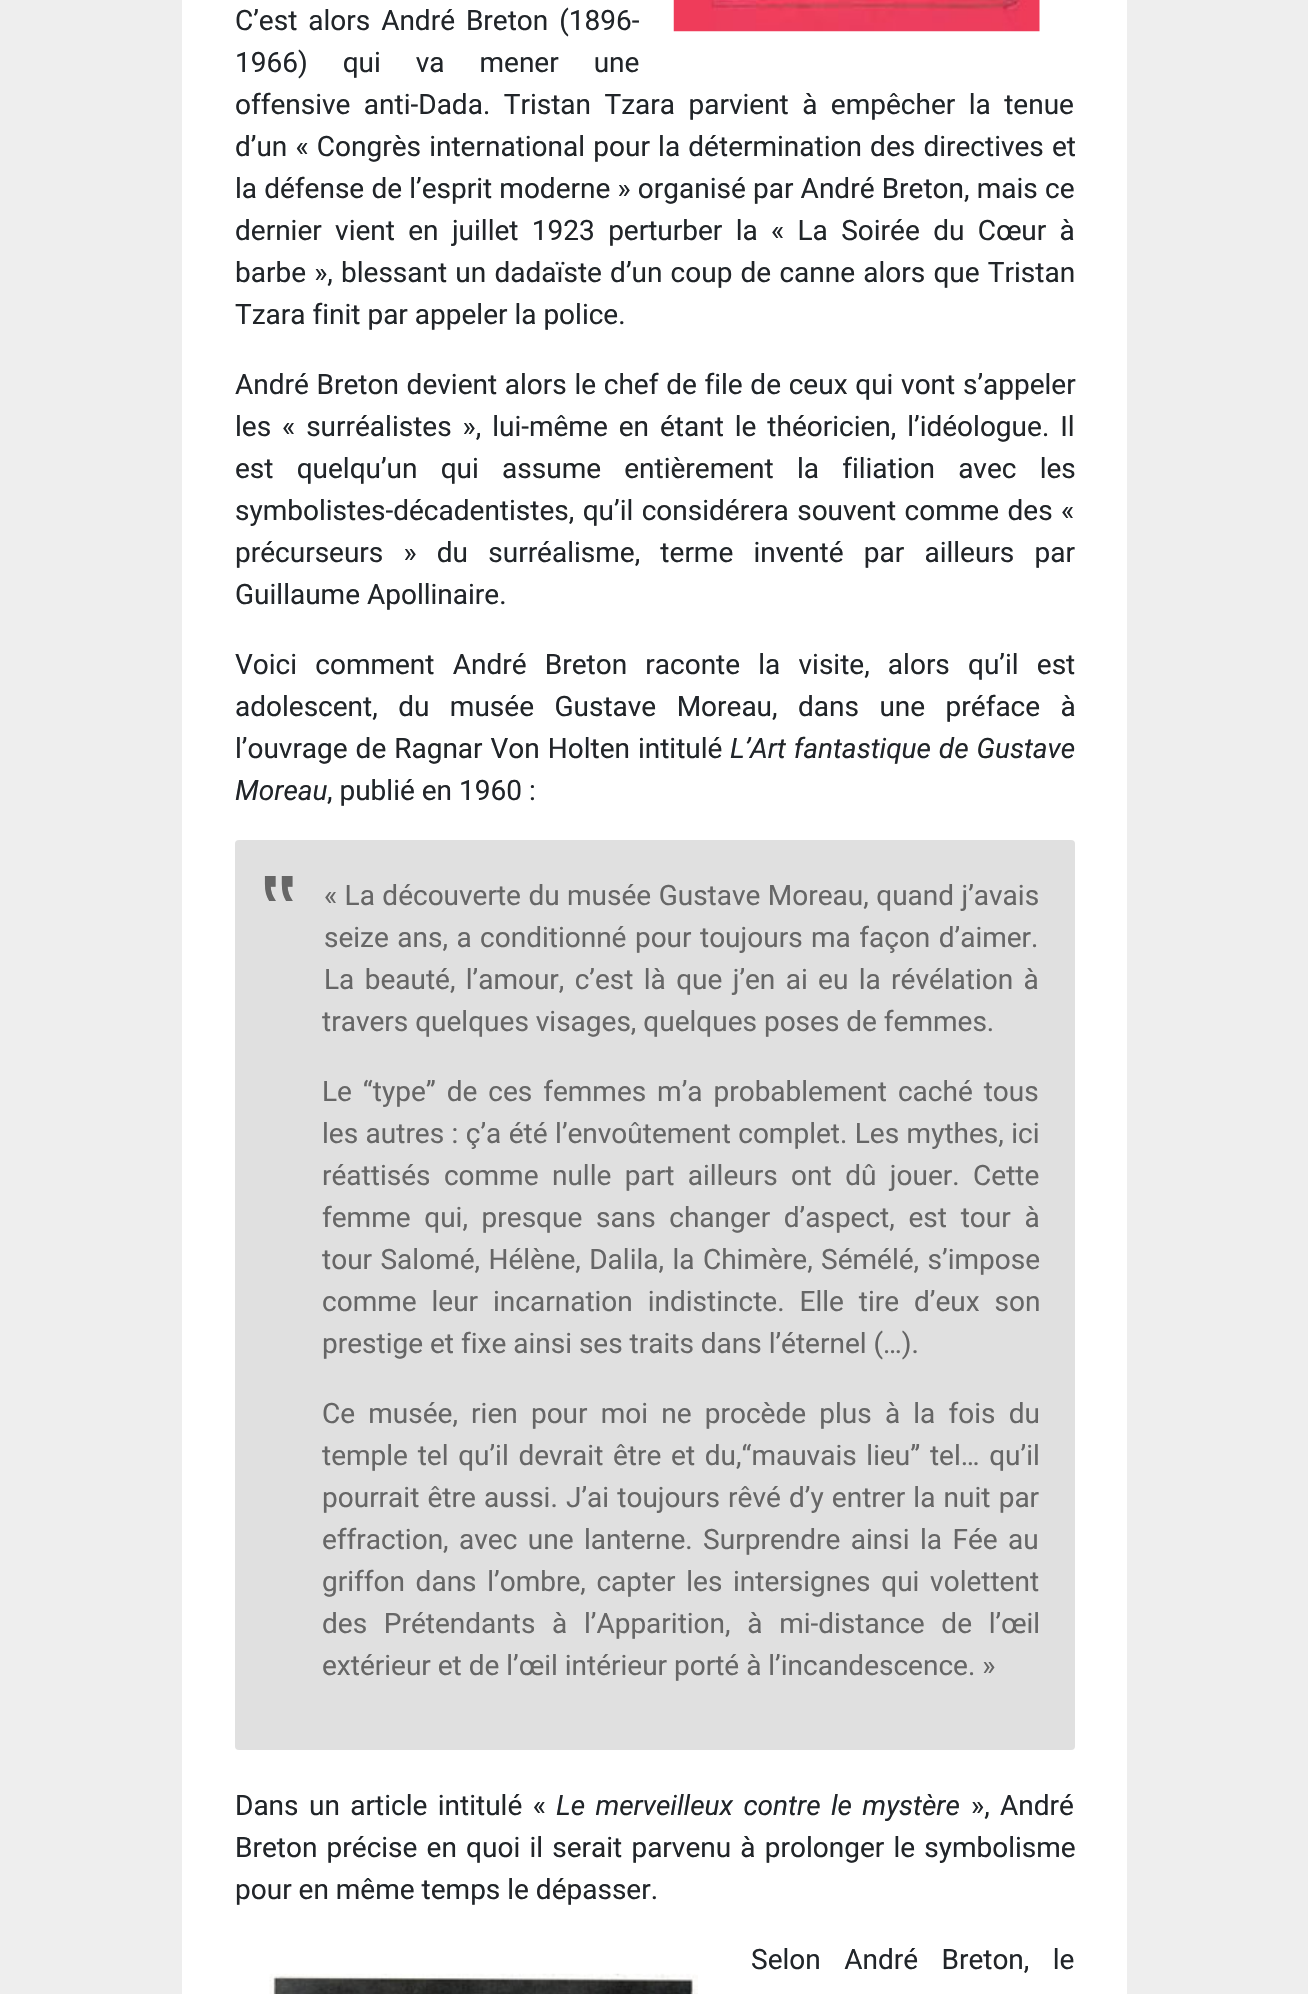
#include "include/core/SkBlurTypes.h"
#include "include/core/SkCanvas.h"
#include "include/core/SkData.h"
#include "include/core/SkFont.h"
#include "include/core/SkFontMgr.h"
#include "include/core/SkImage.h"
#include "include/core/SkMaskFilter.h"
#include "include/core/SkPaint.h"
#include "include/core/SkPathBuilder.h"
#include "include/core/SkTextBlob.h"
#include "include/effects/SkDashPathEffect.h"
#include "include/effects/SkGradientShader.h"
#include "include/utils/SkParsePath.h"

extern sk_sp<SkFontMgr> fontMgr;

static SkFont font(const char* family, int weight, float size, bool italic = false) {
    SkFontStyle style(weight, SkFontStyle::kNormal_Width,
        italic ? SkFontStyle::kItalic_Slant : SkFontStyle::kUpright_Slant);
    SkFont result(fontMgr->matchFamilyStyle(family, style), size);
    result.setSubpixel(true);
    return result;
}

static void drawLabel(SkCanvas* canvas, const char* s, float x, float y, const SkFont& font, SkColor color) {
    SkPaint ink(SkColor4f::FromColor(color));
    ink.setAntiAlias(true);
    canvas->drawString(s, x, y, font, ink);
}

static void drawTracked(SkCanvas* canvas, const char* s, float x, float y, const SkFont& font, const SkPaint& ink, float letter, float word) {
    std::vector<SkGlyphID> glyphs(font.countText(s, strlen(s), SkTextEncoding::kUTF8));
    std::vector<float> xs(glyphs.size());
    font.textToGlyphs(s, strlen(s), SkTextEncoding::kUTF8, glyphs);
    font.getXPos(glyphs, xs, x);
    float extra = 0;
    for (size_t i = 0; i < glyphs.size(); i++) {
        xs[i] += extra;
        extra += letter + word * (glyphs[i] == font.unicharToGlyph(' '));
    }
    canvas->drawTextBlob(SkTextBlob::MakeFromPosHGlyphs(glyphs, xs, y, font), 0, 0, ink);
}

static void fillRect(SkCanvas* canvas, float x, float y, float w, float h, SkColor color) {
    SkPaint ink(SkColor4f::FromColor(color));
    ink.setAntiAlias(true);
    canvas->drawRect(SkRect::MakeXYWH(x, y, w, h), ink);
}

static void fillRRect(SkCanvas* canvas, float x, float y, float w, float h, float radius, SkColor color) {
    SkPaint ink(SkColor4f::FromColor(color));
    ink.setAntiAlias(true);
    canvas->drawRoundRect(SkRect::MakeXYWH(x, y, w, h), radius, radius, ink);
}

static void drawPhoto(SkCanvas* canvas, const char* path, float x, float y, float w, float h) {
    auto image = SkImages::DeferredFromEncodedData(SkData::MakeFromFileName(path));
    canvas->drawImageRect(image, SkRect::MakeXYWH(x, y, w, h), SkSamplingOptions());
}

void draw(SkCanvas* canvas) {
    SkPaint paint;
    paint.setAntiAlias(true);
    canvas->clear(0xFFEEEEEE);
    fillRect(canvas, 182, 0, 945, 1994, 0xFFFFFFFF);
    drawPhoto(canvas, "assets/img1.png", 673, 0, 367, 32);
    SkFont font1 = font("Roboto", 400, 28);
    paint.setColor(0xFF212529);
    drawTracked(canvas, "C’est alors André Breton (1896-", 235, 30, font1, paint, 0, 4);
    drawTracked(canvas, "1966) qui va mener une", 235, 72, font1, paint, 0, 28);
    drawTracked(canvas, "offensive anti-Dada. Tristan Tzara parvient à empêcher la tenue", 235, 114, font1, paint, 0, 6.5f);
    drawTracked(canvas, "d’un « Congrès international pour la détermination des directives et", 235, 156, font1, paint, 0, 1.25f);
    drawTracked(canvas, "la défense de l’esprit moderne » organisé par André Breton, mais ce", 235, 198, font1, paint, 0, 0.25f);
    drawTracked(canvas, "dernier vient en juillet 1923 perturber la « La Soirée du Cœur à", 235, 240, font1, paint, 0, 6.4f);
    drawTracked(canvas, "barbe », blessant un dadaïste d’un coup de canne alors que Tristan", 235, 282, font1, paint, 0, 1.25f);
    drawLabel(canvas, "Tzara finit par appeler la police.", 235, 324, font1, 0xFF212529);
    drawTracked(canvas, "André Breton devient alors le chef de file de ceux qui vont s’appeler", 235, 394, font1, paint, 0, 0.75f);
    drawTracked(canvas, "les « surréalistes », lui-même en étant le théoricien, l’idéologue. Il", 235, 436, font1, paint, 0, 4);
    drawTracked(canvas, "est quelqu’un qui assume entièrement la filiation avec les", 235, 478, font1, paint, 0, 16.25f);
    drawTracked(canvas, "symbolistes-décadentistes, qu’il considérera souvent comme des «", 235, 520, font1, paint, 0, 1.5f);
    drawTracked(canvas, "précurseurs » du surréalisme, terme inventé par ailleurs par", 235, 562, font1, paint, 0, 13.25f);
    drawLabel(canvas, "Guillaume Apollinaire.", 235, 604, font1, 0xFF212529);
    drawTracked(canvas, "Voici comment André Breton raconte la visite, alors qu’il est", 235, 674, font1, paint, 0, 11.25f);
    drawTracked(canvas, "adolescent, du musée Gustave Moreau, dans une préface à", 235, 716, font1, paint, 0, 13.5f);
    drawTracked(canvas, "l’ouvrage de Ragnar Von Holten intitulé", 235, 758, font1, paint, 0, 1);
    SkFont font2 = font("Roboto", 400, 28, true);
    drawTracked(canvas, "L’Art fantastique de Gustave", 730, 758, font2, paint, 0, 1);
    drawLabel(canvas, "Moreau", 235, 800, font2, 0xFF212529);
    drawLabel(canvas, ", publié en 1960 :", 327, 800, font1, 0xFF212529);
    fillRRect(canvas, 235, 840, 840, 910, 4, 0xFFE0E0E0);
    SkFont font3 = font("Liberation Sans", 400, 112);
    drawLabel(canvas, "‟", 261, 953, font3, 0xFF666666);
    paint.setColor(0xFF666666);
    drawTracked(canvas, "« La découverte du musée Gustave Moreau, quand j’avais", 324, 905, font1, paint, 0, 0.5f);
    drawTracked(canvas, "seize ans, a conditionné pour toujours ma façon d’aimer.", 324, 947, font1, paint, 0, 1.5f);
    drawTracked(canvas, "La beauté, l’amour, c’est là que j’en ai eu la révélation à", 324, 989, font1, paint, 0, 3.4f);
    drawLabel(canvas, "travers quelques visages, quelques poses de femmes.", 322, 1031, font1, 0xFF666666);
    drawTracked(canvas, "Le “type” de ces femmes m’a probablement caché tous", 322, 1101, font1, paint, 0, 4);
    drawTracked(canvas, "les autres : ç’a été l’envoûtement complet. Les mythes, ici", 322, 1143, font1, paint, 0, 0.5f);
    drawTracked(canvas, "réattisés comme nulle part ailleurs ont dû jouer. Cette", 322, 1185, font1, paint, 0, 6.5f);
    drawTracked(canvas, "femme qui, presque sans changer d’aspect, est tour à", 322, 1227, font1, paint, 0, 6.75f);
    drawTracked(canvas, "tour Salomé, Hélène, Dalila, la Chimère, Sémélé, s’impose", 322, 1269, font1, paint, 0, 1.5f);
    drawTracked(canvas, "comme leur incarnation indistincte. Elle tire d’eux son", 322, 1311, font1, paint, 0, 8);
    drawLabel(canvas, "prestige et fixe ainsi ses traits dans l’éternel (…).", 322, 1353, font1, 0xFF666666);
    drawTracked(canvas, "Ce musée, rien pour moi ne procède plus à la fois du", 322, 1423, font1, paint, 0, 6.25f);
    drawTracked(canvas, "temple tel qu’il devrait être et du,“mauvais lieu” tel… qu’il", 322, 1465, font1, paint, 0, 2.75f);
    drawTracked(canvas, "pourrait être aussi. J’ai toujours rêvé d’y entrer la nuit par", 322, 1507, font1, paint, 0, 1.25f);
    drawTracked(canvas, "effraction, avec une lanterne. Surprendre ainsi la Fée au", 322, 1549, font1, paint, 0, 3.5f);
    drawTracked(canvas, "griffon dans l’ombre, capter les intersignes qui volettent", 322, 1591, font1, paint, 0, 3.75f);
    drawTracked(canvas, "des Prétendants à l’Apparition, à mi-distance de l’œil", 322, 1633, font1, paint, 0, 9.75f);
    drawLabel(canvas, "extérieur et de l’œil intérieur porté à l’incandescence. »", 322, 1675, font1, 0xFF666666);
    paint.setColor(0xFF212529);
    drawTracked(canvas, "Dans un article intitulé «", 235, 1815, font1, paint, 0, 3.5f);
    drawTracked(canvas, "Le merveilleux contre le mystère", 556, 1815, font2, paint, 0, 3.5f);
    drawTracked(canvas, "», André", 971, 1815, font1, paint, 0, 3.5f);
    drawTracked(canvas, "Breton précise en quoi il serait parvenu à prolonger le symbolisme", 235, 1857, font1, paint, 0, 2.25f);
    drawLabel(canvas, "pour en même temps le dépasser.", 235, 1899, font1, 0xFF212529);
    drawTracked(canvas, "Selon André Breton, le", 751, 1969, font1, paint, 0, 16.5f);
    drawPhoto(canvas, "assets/img2.png", 269, 1973, 429, 21);
}
